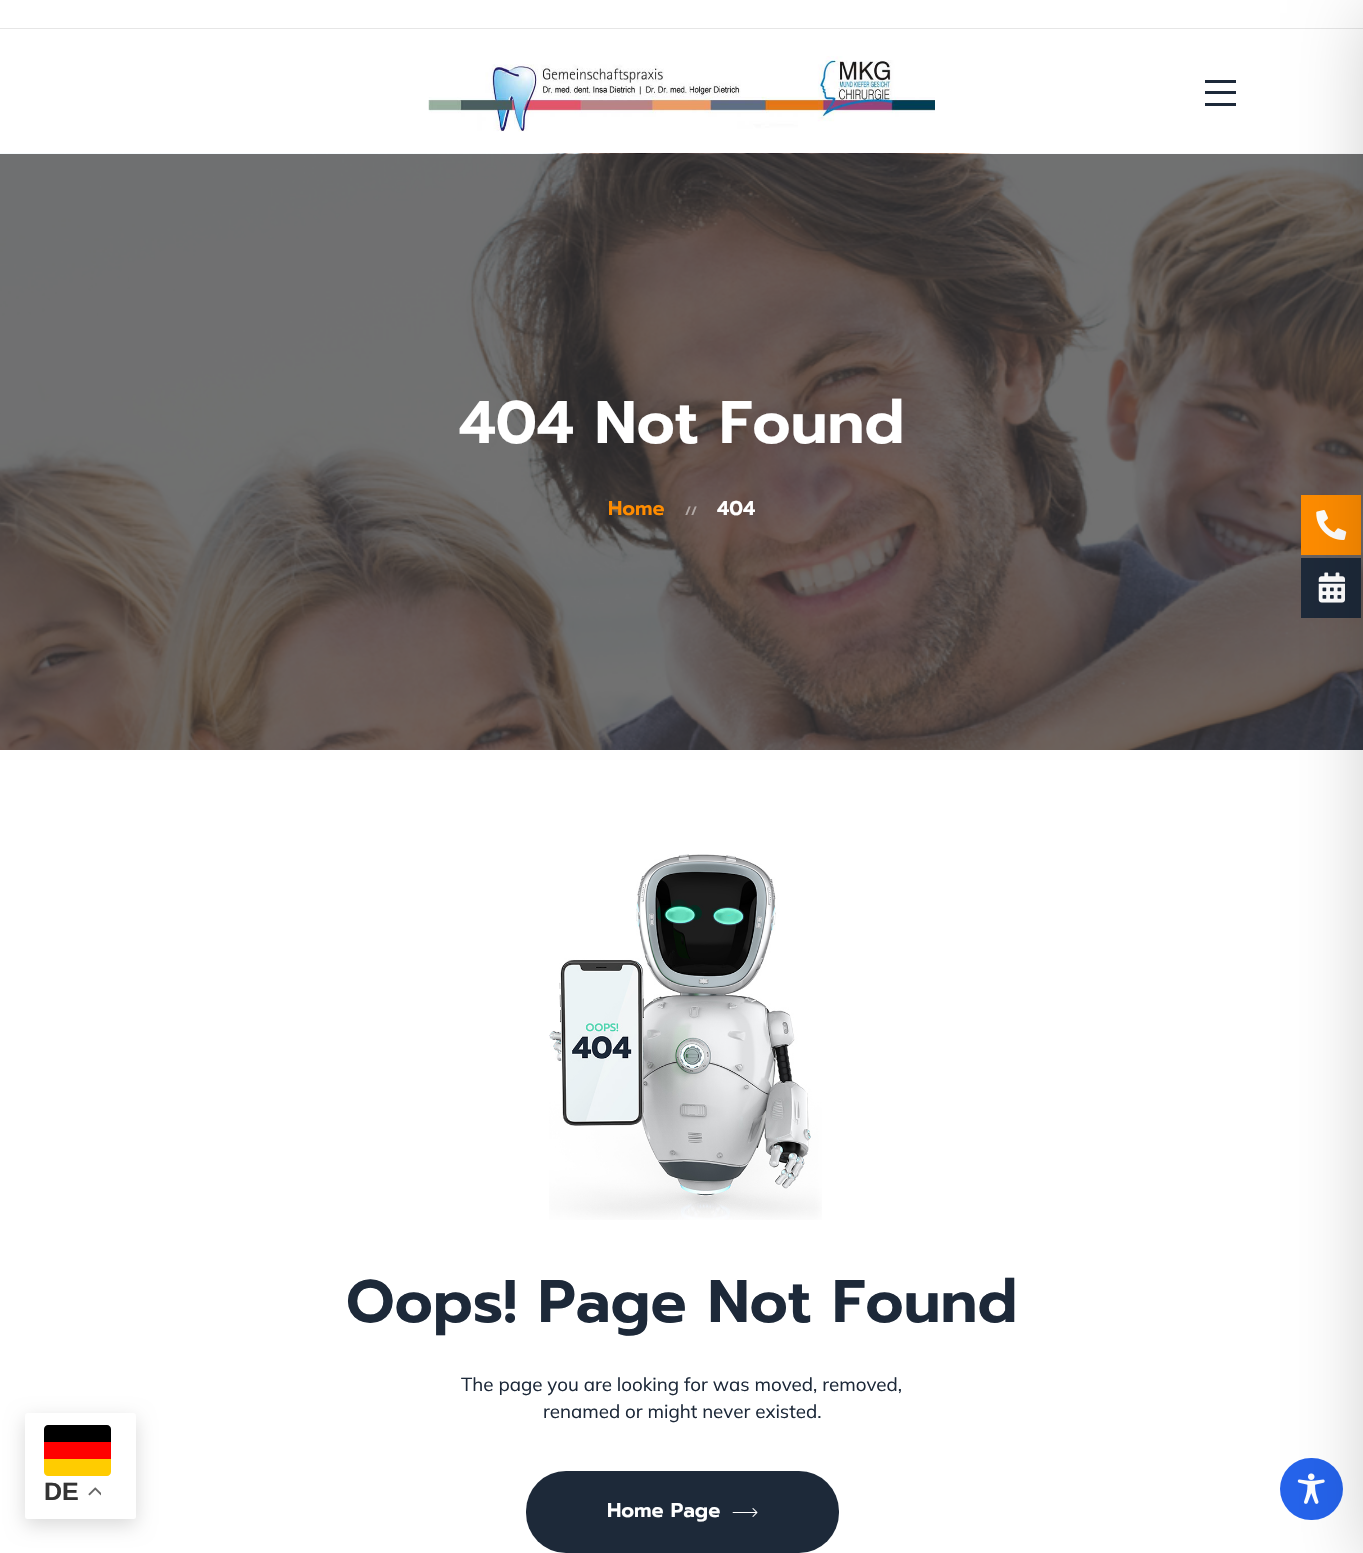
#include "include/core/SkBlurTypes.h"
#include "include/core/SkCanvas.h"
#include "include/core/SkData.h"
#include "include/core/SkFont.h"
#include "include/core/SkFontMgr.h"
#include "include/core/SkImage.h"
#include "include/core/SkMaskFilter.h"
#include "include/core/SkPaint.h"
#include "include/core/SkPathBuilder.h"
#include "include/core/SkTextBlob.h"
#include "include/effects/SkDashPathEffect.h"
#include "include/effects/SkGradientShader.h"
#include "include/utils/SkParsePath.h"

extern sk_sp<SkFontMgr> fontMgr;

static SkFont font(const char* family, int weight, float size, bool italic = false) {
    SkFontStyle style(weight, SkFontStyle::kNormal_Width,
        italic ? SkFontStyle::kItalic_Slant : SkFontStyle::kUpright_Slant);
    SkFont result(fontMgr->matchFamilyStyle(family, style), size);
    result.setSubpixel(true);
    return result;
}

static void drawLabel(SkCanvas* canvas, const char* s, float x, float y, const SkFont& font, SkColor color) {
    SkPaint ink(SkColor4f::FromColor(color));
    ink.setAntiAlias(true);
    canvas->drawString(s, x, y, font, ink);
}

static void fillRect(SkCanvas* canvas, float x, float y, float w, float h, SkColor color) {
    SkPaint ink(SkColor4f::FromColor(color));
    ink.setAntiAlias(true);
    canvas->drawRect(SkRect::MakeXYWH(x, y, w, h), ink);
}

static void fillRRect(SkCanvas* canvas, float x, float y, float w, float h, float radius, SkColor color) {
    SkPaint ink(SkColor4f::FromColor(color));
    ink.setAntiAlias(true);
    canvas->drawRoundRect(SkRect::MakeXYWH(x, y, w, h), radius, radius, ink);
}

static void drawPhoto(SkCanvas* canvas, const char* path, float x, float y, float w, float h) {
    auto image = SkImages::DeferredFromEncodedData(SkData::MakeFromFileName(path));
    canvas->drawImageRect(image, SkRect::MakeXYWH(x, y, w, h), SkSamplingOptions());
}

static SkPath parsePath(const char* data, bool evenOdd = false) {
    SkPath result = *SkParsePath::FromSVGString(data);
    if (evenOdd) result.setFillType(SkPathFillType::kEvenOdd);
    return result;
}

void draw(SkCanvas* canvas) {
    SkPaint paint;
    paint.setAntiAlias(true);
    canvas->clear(0xFFFFFFFF);
    fillRect(canvas, 0, 28, 1363, 1, 0xFFE6E6E6);
    drawPhoto(canvas, "assets/img1.png", 428, 56, 507, 76);
    fillRect(canvas, 1205, 80, 31, 3, 0xFF1D2939);
    fillRect(canvas, 1205, 91, 31, 3, 0xFF1D2939);
    fillRect(canvas, 1205, 103, 31, 3, 0xFF1D2939);
    drawPhoto(canvas, "assets/img2.png", 0, 153, 1363, 597);
    SkFont font1 = font("Prompt", 600, 60);
    drawLabel(canvas, "404 Not Found", 459, 443, font1, 0xFFFFFFFF);
    SkFont font2 = font("Prompt", 600, 20);
    drawLabel(canvas, "Home", 608, 515, font2, 0xFFFF8C00);
    SkFont font3 = font("Prompt", 600, 12);
    drawLabel(canvas, "//", 685, 515, font3, 0xFFB3AAA7);
    drawLabel(canvas, "404", 717, 515, font2, 0xFFFFFFFF);
    drawPhoto(canvas, "assets/img3.png", 549, 854, 273, 366);
    drawLabel(canvas, "Oops! Page Not Found", 346, 1322, font1, 0xFF1D2939);
    SkFont font4 = font("Mulish", 400, 18.75f);
    drawLabel(canvas, "The page you are looking for was moved, removed,", 461, 1391, font4, 0xFF1D2939);
    drawLabel(canvas, "renamed or might never existed.", 543, 1418, font4, 0xFF1D2939);
    fillRRect(canvas, 526, 1471, 313, 82, 40, 0xFF1D2939);
    drawLabel(canvas, "Home Page", 607, 1517, font2, 0xFFFFFFFF);
    drawPhoto(canvas, "assets/img4.png", 732, 1508, 26, 9);
    fillRect(canvas, 1301, 495, 60, 60, 0xFFFF8C00);
    drawPhoto(canvas, "assets/img5.png", 1316, 510, 31, 30);
    fillRect(canvas, 1301, 558, 60, 60, 0xFF1D2939);
    drawPhoto(canvas, "assets/img6.png", 1318, 572, 27, 31);
    fillRRect(canvas, 1280, 1458, 63, 62, 31, 0xFF2563EB);
    drawPhoto(canvas, "assets/img8.png", 1297, 1473, 28, 31);
    paint.setColor(0x33000000);
    paint.setMaskFilter(SkMaskFilter::MakeBlur(kNormal_SkBlurStyle, 37.5f));
    canvas->drawRect(SkRect::MakeXYWH(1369, 13, 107, 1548), paint);
    paint.setMaskFilter(nullptr);
    paint.setColor(0x26000000);
    paint.setMaskFilter(SkMaskFilter::MakeBlur(kNormal_SkBlurStyle, 9.5f));
    canvas->drawRoundRect(SkRect::MakeXYWH(25, 1419, 111, 106), 2.5f, 2.5f, paint);
    paint.setMaskFilter(nullptr);
    fillRRect(canvas, 25, 1413, 111, 106, 2.5f, 0xFFFFFFFF);
    paint.setColor(0xFFFFCC00);
    canvas->drawPath(parsePath("M44 1459H111V1472C111 1474 109 1476 107 1476H48C46 1476 44 1474 44 1472Z"), paint);
    paint.setColor(0xFF000000);
    canvas->drawPath(parsePath("M48 1425H107C109 1425 111 1427 111 1429V1442H44V1429C44 1427 46 1425 48 1425Z"), paint);
    fillRect(canvas, 44, 1442, 67, 17, 0xFFFF0000);
    SkFont font5 = font("Liberation Sans", 700, 25);
    drawLabel(canvas, "DE", 44, 1500, font5, 0xFF333333);
    drawPhoto(canvas, "assets/img7.png", 88, 1487, 13, 9);
}
